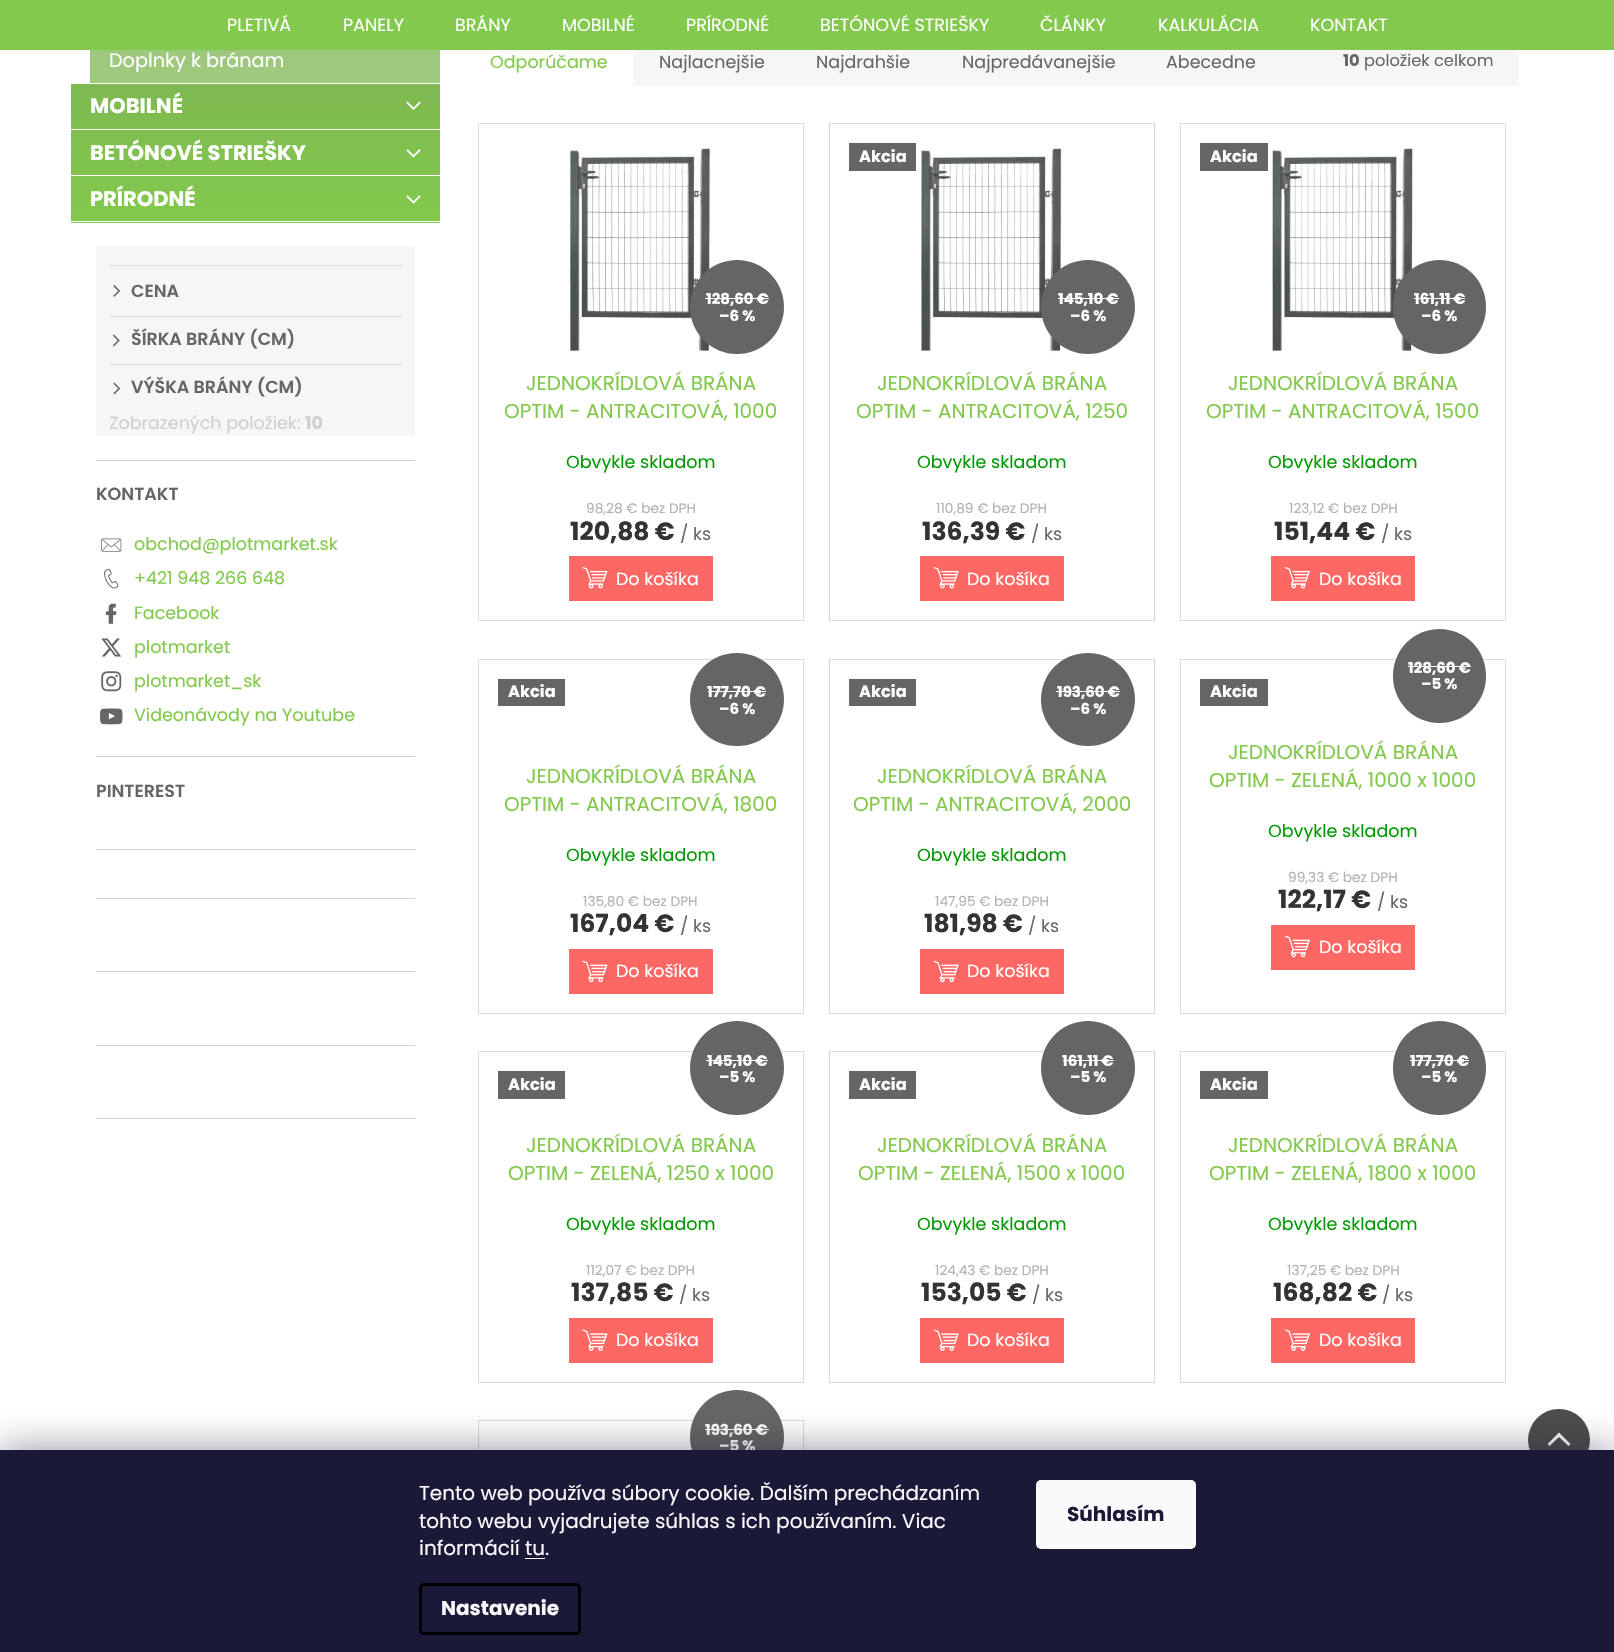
#include "include/core/SkBlurTypes.h"
#include "include/core/SkCanvas.h"
#include "include/core/SkData.h"
#include "include/core/SkFont.h"
#include "include/core/SkFontMgr.h"
#include "include/core/SkImage.h"
#include "include/core/SkMaskFilter.h"
#include "include/core/SkPaint.h"
#include "include/core/SkPathBuilder.h"
#include "include/core/SkTextBlob.h"
#include "include/effects/SkDashPathEffect.h"
#include "include/effects/SkGradientShader.h"
#include "include/utils/SkParsePath.h"

extern sk_sp<SkFontMgr> fontMgr;

static SkFont font(const char* family, int weight, float size, bool italic = false) {
    SkFontStyle style(weight, SkFontStyle::kNormal_Width,
        italic ? SkFontStyle::kItalic_Slant : SkFontStyle::kUpright_Slant);
    SkFont result(fontMgr->matchFamilyStyle(family, style), size);
    result.setSubpixel(true);
    return result;
}

static void drawLabel(SkCanvas* canvas, const char* s, float x, float y, const SkFont& font, SkColor color) {
    SkPaint ink(SkColor4f::FromColor(color));
    ink.setAntiAlias(true);
    canvas->drawString(s, x, y, font, ink);
}

static void fillRect(SkCanvas* canvas, float x, float y, float w, float h, SkColor color) {
    SkPaint ink(SkColor4f::FromColor(color));
    ink.setAntiAlias(true);
    canvas->drawRect(SkRect::MakeXYWH(x, y, w, h), ink);
}

static void fillRRect(SkCanvas* canvas, float x, float y, float w, float h, float radius, SkColor color) {
    SkPaint ink(SkColor4f::FromColor(color));
    ink.setAntiAlias(true);
    canvas->drawRoundRect(SkRect::MakeXYWH(x, y, w, h), radius, radius, ink);
}

static void drawPhoto(SkCanvas* canvas, const char* path, float x, float y, float w, float h) {
    auto image = SkImages::DeferredFromEncodedData(SkData::MakeFromFileName(path));
    canvas->drawImageRect(image, SkRect::MakeXYWH(x, y, w, h), SkSamplingOptions());
}

static SkPath parsePath(const char* data, bool evenOdd = false) {
    SkPath result = *SkParsePath::FromSVGString(data);
    if (evenOdd) result.setFillType(SkPathFillType::kEvenOdd);
    return result;
}

void draw(SkCanvas* canvas) {
    SkPaint paint;
    paint.setAntiAlias(true);
    canvas->clear(0xFFFFFFFF);
    fillRect(canvas, 0, 0, 1614, 50, 0xFF83C94D);
    SkFont font1 = font("Poppins", 400, 17.5f);
    drawLabel(canvas, "PLETIVÁ", 227, 31, font1, 0xFFFFFFFF);
    drawLabel(canvas, "PANELY", 343, 31, font1, 0xFFFFFFFF);
    drawLabel(canvas, "BRÁNY", 455, 31, font1, 0xFFFFFFFF);
    drawLabel(canvas, "MOBILNÉ", 562, 31, font1, 0xFFFFFFFF);
    drawLabel(canvas, "PRÍRODNÉ", 686, 31, font1, 0xFFFFFFFF);
    drawLabel(canvas, "BETÓNOVÉ STRIEŠKY", 820, 31, font1, 0xFFFFFFFF);
    drawLabel(canvas, "ČLÁNKY", 1040, 31, font1, 0xFFFFFFFF);
    drawLabel(canvas, "KALKULÁCIA", 1158, 31, font1, 0xFFFFFFFF);
    drawLabel(canvas, "KONTAKT", 1310, 31, font1, 0xFFFFFFFF);
    {
        const SkColor colors[] = {0xFF656565, 0xFF83C94D};
        const float stops[] = {0, 1};
        const SkPoint ends[] = {{256, -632}, {256, 223}};
        paint.setShader(SkGradientShader::MakeLinear(ends, colors, stops, 2, SkTileMode::kClamp));
        paint.setAlpha(255);
    }
    canvas->drawRect(SkRect::MakeXYWH(71, 84, 369, 139), paint);
    {
        const SkColor colors[] = {0xFF8C8C8C, 0xFFA2D77A};
        const float stops[] = {0, 1};
        const SkPoint ends[] = {{256, -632}, {256, 223}};
        paint.setShader(SkGradientShader::MakeLinear(ends, colors, stops, 2, SkTileMode::kClamp));
        paint.setAlpha(255);
    }
    canvas->drawRect(SkRect::MakeXYWH(90, 50, 350, 33), paint);
    SkFont font2 = font("Poppins", 400, 19.25f);
    drawLabel(canvas, "Doplnky k bránam", 109, 67, font2, 0xFFFFFFFF);
    fillRect(canvas, 71, 129, 369, 1, 0xFFFFFFFF);
    SkFont font3 = font("Poppins", 700, 21);
    drawLabel(canvas, "MOBILNÉ", 90, 113, font3, 0xFFFFFFFF);
    drawPhoto(canvas, "assets/img1.png", 406, 101, 15, 9);
    fillRect(canvas, 71, 175, 369, 1, 0xFFFFFFFF);
    drawLabel(canvas, "BETÓNOVÉ STRIEŠKY", 90, 160, font3, 0xFFFFFFFF);
    drawPhoto(canvas, "assets/img2.png", 406, 149, 15, 9);
    fillRect(canvas, 71, 221, 369, 1, 0xFFFFFFFF);
    drawLabel(canvas, "PRÍRODNÉ", 90, 206, font3, 0xFFFFFFFF);
    drawPhoto(canvas, "assets/img3.png", 406, 195, 15, 9);
    fillRect(canvas, 96, 460, 319, 1, 0xFFD0D0D0);
    fillRect(canvas, 96, 246, 319, 190, 0xFFF6F6F6);
    fillRect(canvas, 109, 265, 294, 1, 0xFFE0E0E0);
    drawPhoto(canvas, "assets/img4.png", 113, 285, 8, 12);
    SkFont font4 = font("Poppins", 600, 17.5f);
    drawLabel(canvas, "CENA", 131, 297, font4, 0xFF666666);
    fillRect(canvas, 109, 316, 294, 1, 0xFFE0E0E0);
    drawPhoto(canvas, "assets/img5.png", 112, 334, 8, 13);
    drawLabel(canvas, "ŠÍRKA BRÁNY (CM)", 131, 345, font4, 0xFF666666);
    fillRect(canvas, 109, 364, 294, 1, 0xFFE0E0E0);
    drawPhoto(canvas, "assets/img6.png", 113, 382, 8, 13);
    drawLabel(canvas, "VÝŠKA BRÁNY (CM)", 131, 393, font4, 0xFF666666);
    drawLabel(canvas, "Zobrazených položiek:", 109, 429, font1, 0xFFCFCFCF);
    SkFont font5 = font("Poppins", 700, 17.5f);
    drawLabel(canvas, "10", 305, 429, font5, 0xFFCFCFCF);
    fillRect(canvas, 96, 756, 319, 1, 0xFFD0D0D0);
    drawLabel(canvas, "KONTAKT", 96, 500, font4, 0xFF666666);
    drawPhoto(canvas, "assets/img7.png", 101, 538, 21, 14);
    drawLabel(canvas, "obchod@plotmarket.sk", 134, 550, font1, 0xFF83C94D);
    drawPhoto(canvas, "assets/img8.png", 104, 568, 15, 21);
    drawLabel(canvas, "+421 948 266 648", 134, 584, font1, 0xFF83C94D);
    drawPhoto(canvas, "assets/img9.png", 106, 603, 11, 21);
    drawLabel(canvas, "Facebook", 134, 619, font1, 0xFF83C94D);
    drawPhoto(canvas, "assets/img10.png", 101, 638, 21, 19);
    drawLabel(canvas, "plotmarket", 134, 653, font1, 0xFF83C94D);
    drawPhoto(canvas, "assets/img11.png", 101, 671, 21, 21);
    drawLabel(canvas, "plotmarket_sk", 134, 687, font1, 0xFF83C94D);
    drawPhoto(canvas, "assets/img12.png", 100, 708, 23, 17);
    drawLabel(canvas, "Videonávody na Youtube", 134, 721, font1, 0xFF83C94D);
    fillRect(canvas, 96, 849, 319, 1, 0xFFD0D0D0);
    drawLabel(canvas, "PINTEREST", 96, 797, font4, 0xFF666666);
    fillRect(canvas, 96, 898, 319, 1, 0xFFD0D0D0);
    fillRect(canvas, 96, 971, 319, 1, 0xFFD0D0D0);
    fillRect(canvas, 96, 1045, 319, 1, 0xFFD0D0D0);
    fillRect(canvas, 96, 1118, 319, 1, 0xFFD0D0D0);
    fillRect(canvas, 633, 50, 886, 36, 0xFFF6F6F6);
    drawLabel(canvas, "Odporúčame", 490, 68, font1, 0xFF83C94D);
    drawLabel(canvas, "Najlacnejšie", 659, 68, font1, 0xFF666666);
    drawLabel(canvas, "Najdrahšie", 816, 68, font1, 0xFF666666);
    drawLabel(canvas, "Najpredávanejšie", 962, 68, font1, 0xFF666666);
    drawLabel(canvas, "Abecedne", 1166, 68, font1, 0xFF666666);
    SkFont font6 = font("Poppins", 700, 16.25f);
    drawLabel(canvas, "10", 1343, 66, font6, 0xFF666666);
    SkFont font7 = font("Poppins", 400, 16.25f);
    drawLabel(canvas, "položiek celkom", 1364, 66, font7, 0xFF666666);
    paint.setStroke(true);
    paint.setStrokeWidth(1);
    paint.setShader(nullptr);
    paint.setColor(0xFFDEDAD7);
    canvas->drawRect(SkRect::MakeXYWH(478.5f, 123.5f, 325, 497), paint);
    drawPhoto(canvas, "assets/img13.png", 568, 148, 146, 205);
    paint.setStroke(false);
    paint.setColor(0xFF656565);
    canvas->drawCircle(737, 307, 47, paint);
    SkFont font8 = font("Poppins", 700, 15);
    drawLabel(canvas, "128,60 €", 706, 304, font8, 0xFFFFFFFF);
    fillRect(canvas, 705, 298, 64, 1, 0xFFFFFFFF);
    drawLabel(canvas, "–6 %", 719, 321, font8, 0xFFFFFFFF);
    SkFont font9 = font("Poppins", 400, 20);
    drawLabel(canvas, "JEDNOKRÍDLOVÁ BRÁNA", 526, 390, font9, 0xFF83C94D);
    drawLabel(canvas, "OPTIM - ANTRACITOVÁ, 1000", 504, 418, font9, 0xFF83C94D);
    drawLabel(canvas, "Obvykle skladom", 566, 468, font1, 0xFF009901);
    SkFont font10 = font("Poppins", 400, 13.75f);
    drawLabel(canvas, "98,28 € bez DPH", 586, 513, font10, 0xFFB2B2B2);
    SkFont font11 = font("Poppins", 700, 25);
    drawLabel(canvas, "120,88 €", 570, 540, font11, 0xFF333333);
    drawLabel(canvas, "/ ks", 680, 540, font1, 0xFF666666);
    fillRect(canvas, 569, 556, 144, 45, 0xFFFD6864);
    drawPhoto(canvas, "assets/img14.png", 582, 567, 26, 22);
    drawLabel(canvas, "Do košíka", 616, 585, font1, 0xFFFFFFFF);
    paint.setStroke(true);
    paint.setColor(0xFFDEDAD7);
    canvas->drawRect(SkRect::MakeXYWH(829.5f, 123.5f, 325, 497), paint);
    fillRect(canvas, 849, 143, 67, 28, 0xFF656565);
    drawLabel(canvas, "Akcia", 859, 162, font6, 0xFFFFFFFF);
    drawPhoto(canvas, "assets/img15.png", 919, 148, 146, 205);
    paint.setStroke(false);
    paint.setColor(0xFF656565);
    canvas->drawCircle(1088, 307, 47, paint);
    drawLabel(canvas, "145,10 €", 1058, 304, font8, 0xFFFFFFFF);
    fillRect(canvas, 1058, 298, 61, 1, 0xFFFFFFFF);
    drawLabel(canvas, "–6 %", 1070, 321, font8, 0xFFFFFFFF);
    drawLabel(canvas, "JEDNOKRÍDLOVÁ BRÁNA", 877, 390, font9, 0xFF83C94D);
    drawLabel(canvas, "OPTIM - ANTRACITOVÁ, 1250", 856, 418, font9, 0xFF83C94D);
    drawLabel(canvas, "Obvykle skladom", 917, 468, font1, 0xFF009901);
    drawLabel(canvas, "110,89 € bez DPH", 936, 513, font10, 0xFFB2B2B2);
    drawLabel(canvas, "136,39 €", 922, 540, font11, 0xFF333333);
    drawLabel(canvas, "/ ks", 1031, 540, font1, 0xFF666666);
    fillRect(canvas, 920, 556, 144, 45, 0xFFFD6864);
    drawPhoto(canvas, "assets/img16.png", 933, 567, 26, 22);
    drawLabel(canvas, "Do košíka", 967, 585, font1, 0xFFFFFFFF);
    paint.setStroke(true);
    paint.setColor(0xFFDEDAD7);
    canvas->drawRect(SkRect::MakeXYWH(1180.5f, 123.5f, 325, 497), paint);
    fillRect(canvas, 1200, 143, 68, 28, 0xFF656565);
    drawLabel(canvas, "Akcia", 1210, 162, font6, 0xFFFFFFFF);
    drawPhoto(canvas, "assets/img17.png", 1271, 148, 145, 205);
    fillRRect(canvas, 1393, 260, 93, 94, 46.5f, 0xFF656565);
    drawLabel(canvas, "161,11 €", 1414, 304, font8, 0xFFFFFFFF);
    fillRect(canvas, 1414, 298, 51, 1, 0xFFFFFFFF);
    drawLabel(canvas, "–6 %", 1421, 321, font8, 0xFFFFFFFF);
    drawLabel(canvas, "JEDNOKRÍDLOVÁ BRÁNA", 1228, 390, font9, 0xFF83C94D);
    drawLabel(canvas, "OPTIM - ANTRACITOVÁ, 1500", 1206, 418, font9, 0xFF83C94D);
    drawLabel(canvas, "Obvykle skladom", 1268, 468, font1, 0xFF009901);
    drawLabel(canvas, "123,12 € bez DPH", 1289, 513, font10, 0xFFB2B2B2);
    drawLabel(canvas, "151,44 €", 1274, 540, font11, 0xFF333333);
    drawLabel(canvas, "/ ks", 1381, 540, font1, 0xFF666666);
    fillRect(canvas, 1271, 556, 144, 45, 0xFFFD6864);
    drawPhoto(canvas, "assets/img18.png", 1285, 567, 25, 22);
    drawLabel(canvas, "Do košíka", 1319, 585, font1, 0xFFFFFFFF);
    canvas->drawRect(SkRect::MakeXYWH(478.5f, 659.5f, 325, 354), paint);
    fillRect(canvas, 498, 679, 67, 27, 0xFF656565);
    drawLabel(canvas, "Akcia", 508, 697, font6, 0xFFFFFFFF);
    fillRRect(canvas, 690, 653, 94, 93, 46.5f, 0xFF656565);
    drawLabel(canvas, "177,70 €", 707, 697, font8, 0xFFFFFFFF);
    fillRect(canvas, 708, 691, 58, 1, 0xFFFFFFFF);
    drawLabel(canvas, "–6 %", 719, 714, font8, 0xFFFFFFFF);
    drawLabel(canvas, "JEDNOKRÍDLOVÁ BRÁNA", 526, 783, font9, 0xFF83C94D);
    drawLabel(canvas, "OPTIM - ANTRACITOVÁ, 1800", 504, 811, font9, 0xFF83C94D);
    drawLabel(canvas, "Obvykle skladom", 566, 861, font1, 0xFF009901);
    drawLabel(canvas, "135,80 € bez DPH", 583, 906, font10, 0xFFB2B2B2);
    drawLabel(canvas, "167,04 €", 570, 932, font11, 0xFF333333);
    drawLabel(canvas, "/ ks", 680, 932, font1, 0xFF666666);
    fillRect(canvas, 569, 949, 144, 45, 0xFFFD6864);
    drawPhoto(canvas, "assets/img19.png", 582, 960, 26, 23);
    drawLabel(canvas, "Do košíka", 616, 977, font1, 0xFFFFFFFF);
    canvas->drawRect(SkRect::MakeXYWH(829.5f, 659.5f, 325, 354), paint);
    fillRect(canvas, 849, 679, 67, 27, 0xFF656565);
    drawLabel(canvas, "Akcia", 859, 697, font6, 0xFFFFFFFF);
    fillRRect(canvas, 1041, 653, 94, 93, 46.5f, 0xFF656565);
    drawLabel(canvas, "193,60 €", 1057, 697, font8, 0xFFFFFFFF);
    fillRect(canvas, 1056, 691, 64, 1, 0xFFFFFFFF);
    drawLabel(canvas, "–6 %", 1070, 714, font8, 0xFFFFFFFF);
    drawLabel(canvas, "JEDNOKRÍDLOVÁ BRÁNA", 877, 783, font9, 0xFF83C94D);
    drawLabel(canvas, "OPTIM - ANTRACITOVÁ, 2000", 853, 811, font9, 0xFF83C94D);
    drawLabel(canvas, "Obvykle skladom", 917, 861, font1, 0xFF009901);
    drawLabel(canvas, "147,95 € bez DPH", 935, 906, font10, 0xFFB2B2B2);
    drawLabel(canvas, "181,98 €", 924, 932, font11, 0xFF333333);
    drawLabel(canvas, "/ ks", 1028, 932, font1, 0xFF666666);
    fillRect(canvas, 920, 949, 144, 45, 0xFFFD6864);
    drawPhoto(canvas, "assets/img20.png", 933, 960, 26, 23);
    drawLabel(canvas, "Do košíka", 967, 977, font1, 0xFFFFFFFF);
    canvas->drawRect(SkRect::MakeXYWH(1180.5f, 659.5f, 325, 354), paint);
    fillRect(canvas, 1200, 679, 68, 27, 0xFF656565);
    drawLabel(canvas, "Akcia", 1210, 697, font6, 0xFFFFFFFF);
    fillRRect(canvas, 1393, 629, 93, 94, 46.5f, 0xFF656565);
    drawLabel(canvas, "128,60 €", 1408, 673, font8, 0xFFFFFFFF);
    fillRect(canvas, 1408, 666, 63, 1, 0xFFFFFFFF);
    drawLabel(canvas, "–5 %", 1421, 689, font8, 0xFFFFFFFF);
    drawLabel(canvas, "JEDNOKRÍDLOVÁ BRÁNA", 1228, 759, font9, 0xFF83C94D);
    drawLabel(canvas, "OPTIM - ZELENÁ, 1000 x 1000", 1209, 787, font9, 0xFF83C94D);
    drawLabel(canvas, "Obvykle skladom", 1268, 837, font1, 0xFF009901);
    drawLabel(canvas, "99,33 € bez DPH", 1288, 882, font10, 0xFFB2B2B2);
    drawLabel(canvas, "122,17 €", 1278, 908, font11, 0xFF333333);
    drawLabel(canvas, "/ ks", 1377, 908, font1, 0xFF666666);
    fillRect(canvas, 1271, 925, 144, 45, 0xFFFD6864);
    drawPhoto(canvas, "assets/img21.png", 1285, 935, 25, 23);
    drawLabel(canvas, "Do košíka", 1319, 953, font1, 0xFFFFFFFF);
    canvas->drawRect(SkRect::MakeXYWH(478.5f, 1051.5f, 325, 331), paint);
    fillRect(canvas, 498, 1071, 67, 28, 0xFF656565);
    drawLabel(canvas, "Akcia", 508, 1090, font6, 0xFFFFFFFF);
    paint.setStroke(false);
    paint.setColor(0xFF656565);
    canvas->drawCircle(737, 1068, 47, paint);
    drawLabel(canvas, "145,10 €", 707, 1066, font8, 0xFFFFFFFF);
    fillRect(canvas, 706, 1060, 62, 1, 0xFFFFFFFF);
    drawLabel(canvas, "–5 %", 719, 1082, font8, 0xFFFFFFFF);
    drawLabel(canvas, "JEDNOKRÍDLOVÁ BRÁNA", 526, 1152, font9, 0xFF83C94D);
    drawLabel(canvas, "OPTIM - ZELENÁ, 1250 x 1000", 508, 1180, font9, 0xFF83C94D);
    drawLabel(canvas, "Obvykle skladom", 566, 1230, font1, 0xFF009901);
    drawLabel(canvas, "112,07 € bez DPH", 586, 1275, font10, 0xFFB2B2B2);
    drawLabel(canvas, "137,85 €", 571, 1301, font11, 0xFF333333);
    drawLabel(canvas, "/ ks", 679, 1301, font1, 0xFF666666);
    fillRect(canvas, 569, 1318, 144, 45, 0xFFFD6864);
    drawPhoto(canvas, "assets/img22.png", 582, 1329, 26, 22);
    drawLabel(canvas, "Do košíka", 616, 1346, font1, 0xFFFFFFFF);
    paint.setStroke(true);
    paint.setColor(0xFFDEDAD7);
    canvas->drawRect(SkRect::MakeXYWH(829.5f, 1051.5f, 325, 331), paint);
    fillRect(canvas, 849, 1071, 67, 28, 0xFF656565);
    drawLabel(canvas, "Akcia", 859, 1090, font6, 0xFFFFFFFF);
    paint.setStroke(false);
    paint.setColor(0xFF656565);
    canvas->drawCircle(1088, 1068, 47, paint);
    drawLabel(canvas, "161,11 €", 1062, 1066, font8, 0xFFFFFFFF);
    fillRect(canvas, 1063, 1060, 51, 1, 0xFFFFFFFF);
    drawLabel(canvas, "–5 %", 1070, 1082, font8, 0xFFFFFFFF);
    drawLabel(canvas, "JEDNOKRÍDLOVÁ BRÁNA", 877, 1152, font9, 0xFF83C94D);
    drawLabel(canvas, "OPTIM - ZELENÁ, 1500 x 1000", 858, 1180, font9, 0xFF83C94D);
    drawLabel(canvas, "Obvykle skladom", 917, 1230, font1, 0xFF009901);
    drawLabel(canvas, "124,43 € bez DPH", 935, 1275, font10, 0xFFB2B2B2);
    drawLabel(canvas, "153,05 €", 921, 1301, font11, 0xFF333333);
    drawLabel(canvas, "/ ks", 1032, 1301, font1, 0xFF666666);
    fillRect(canvas, 920, 1318, 144, 45, 0xFFFD6864);
    drawPhoto(canvas, "assets/img23.png", 933, 1329, 26, 22);
    drawLabel(canvas, "Do košíka", 967, 1346, font1, 0xFFFFFFFF);
    paint.setStroke(true);
    paint.setColor(0xFFDEDAD7);
    canvas->drawRect(SkRect::MakeXYWH(1180.5f, 1051.5f, 325, 331), paint);
    fillRect(canvas, 1200, 1071, 68, 28, 0xFF656565);
    drawLabel(canvas, "Akcia", 1210, 1090, font6, 0xFFFFFFFF);
    fillRRect(canvas, 1393, 1021, 93, 94, 46.5f, 0xFF656565);
    drawLabel(canvas, "177,70 €", 1410, 1066, font8, 0xFFFFFFFF);
    fillRect(canvas, 1410, 1060, 59, 1, 0xFFFFFFFF);
    drawLabel(canvas, "–5 %", 1421, 1082, font8, 0xFFFFFFFF);
    drawLabel(canvas, "JEDNOKRÍDLOVÁ BRÁNA", 1228, 1152, font9, 0xFF83C94D);
    drawLabel(canvas, "OPTIM - ZELENÁ, 1800 x 1000", 1209, 1180, font9, 0xFF83C94D);
    drawLabel(canvas, "Obvykle skladom", 1268, 1230, font1, 0xFF009901);
    drawLabel(canvas, "137,25 € bez DPH", 1287, 1275, font10, 0xFFB2B2B2);
    drawLabel(canvas, "168,82 €", 1273, 1301, font11, 0xFF333333);
    drawLabel(canvas, "/ ks", 1382, 1301, font1, 0xFF666666);
    fillRect(canvas, 1271, 1318, 144, 45, 0xFFFD6864);
    drawPhoto(canvas, "assets/img24.png", 1285, 1329, 25, 22);
    drawLabel(canvas, "Do košíka", 1319, 1346, font1, 0xFFFFFFFF);
    canvas->drawRect(SkRect::MakeXYWH(478.5f, 1420.5f, 325, 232), paint);
    paint.setStroke(false);
    paint.setColor(0xFF656565);
    canvas->drawCircle(737, 1437, 47, paint);
    drawLabel(canvas, "193,60 €", 705, 1435, font8, 0xFFFFFFFF);
    fillRect(canvas, 705, 1429, 64, 1, 0xFFFFFFFF);
    drawLabel(canvas, "–5 %", 719, 1451, font8, 0xFFFFFFFF);
    paint.setColor(0xFF4D4D4D);
    canvas->drawCircle(1559, 1440, 31, paint);
    paint.setColor(0xFFFFFFFF);
    canvas->drawPath(parsePath("M1547.5 1444L1549.5 1446L1559 1437L1568.5 1446L1570.5 1444L1559 1432.5Z"), paint);
    paint.setColor(0x801B1939);
    paint.setMaskFilter(SkMaskFilter::MakeBlur(kNormal_SkBlurStyle, 19));
    canvas->drawRect(SkRect::MakeXYWH(0, 1450, 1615, 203), paint);
    paint.setMaskFilter(nullptr);
    fillRect(canvas, 0, 1450, 1614, 202, 0xFF1A1937);
    drawLabel(canvas, "Tento web používa súbory cookie. Ďalším prechádzaním", 419, 1500, font9, 0xFFF8FAFB);
    drawLabel(canvas, "tohto webu vyjadrujete súhlas s ich používaním. Viac", 419, 1528, font9, 0xFFF8FAFB);
    drawLabel(canvas, "informácií tu.", 419, 1555, font9, 0xFFF8FAFB);
    fillRect(canvas, 525, 1558, 20, 1, 0xFFF8FAFB);
    paint.setStroke(true);
    paint.setStrokeWidth(3);
    paint.setColor(0xFF000000);
    canvas->drawRoundRect(SkRect::MakeXYWH(420.5f, 1584.5f, 159, 49), 3.5f, 3.5f, paint);
    SkFont font12 = font("Poppins", 700, 20);
    drawLabel(canvas, "Nastavenie", 441, 1615, font12, 0xFFF8FAFB);
    fillRRect(canvas, 1036, 1480, 160, 69, 5, 0xFFF8FAFB);
    drawLabel(canvas, "Súhlasím", 1067, 1521, font12, 0xFF1A1937);
}
